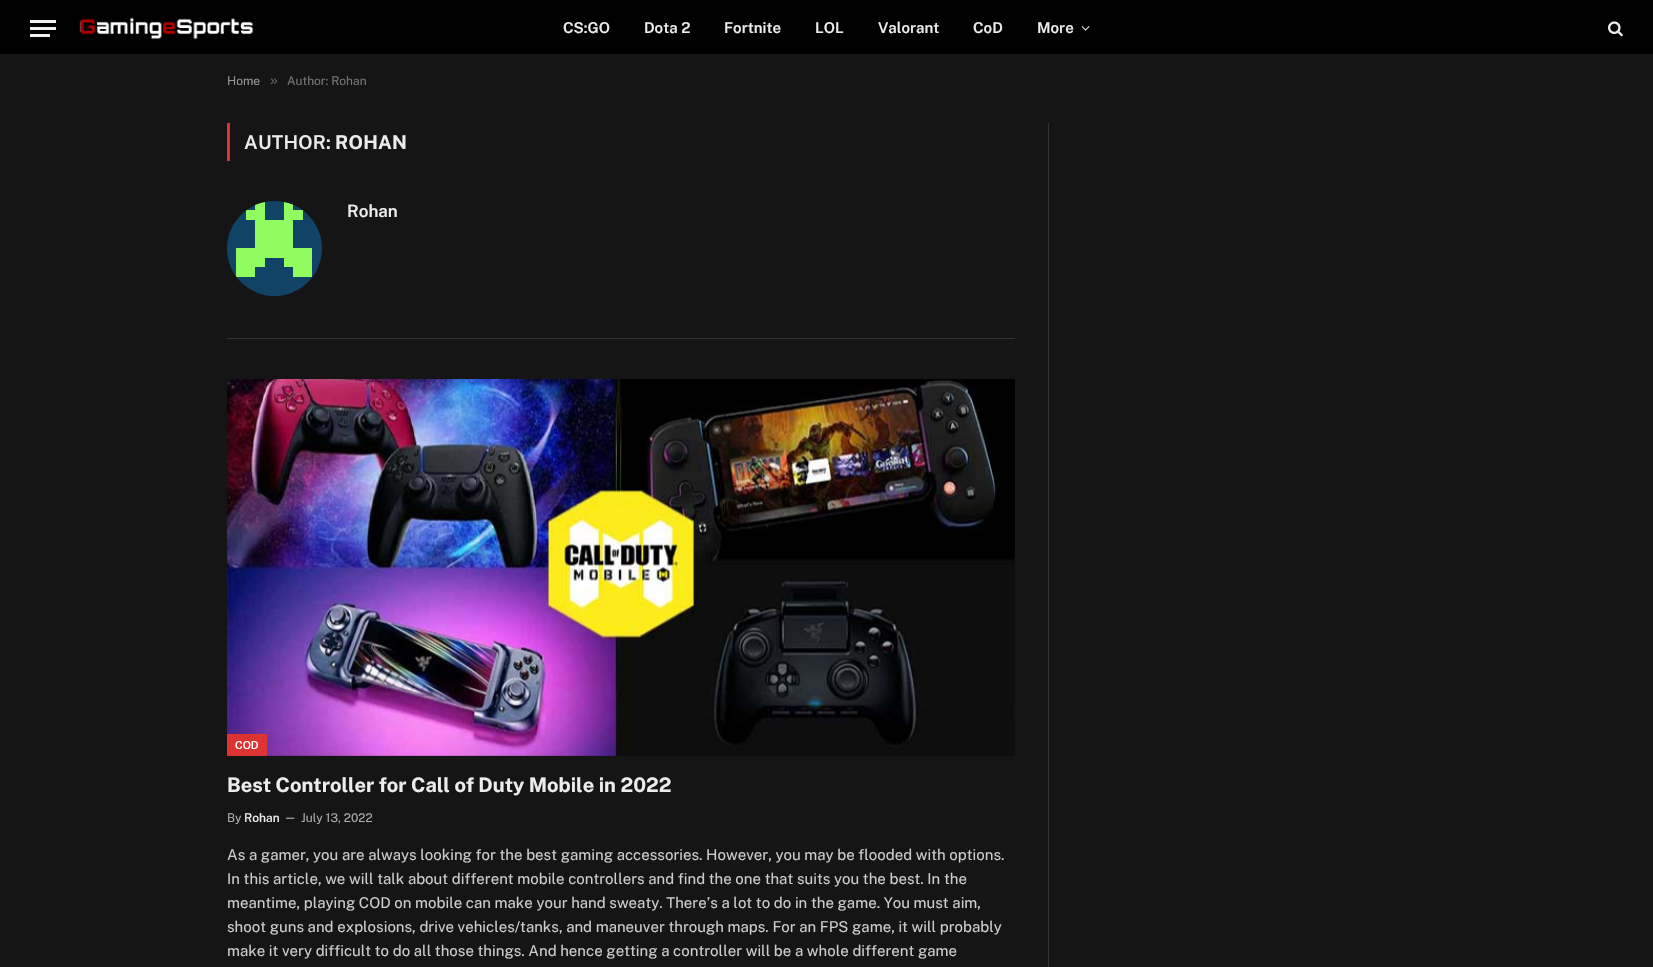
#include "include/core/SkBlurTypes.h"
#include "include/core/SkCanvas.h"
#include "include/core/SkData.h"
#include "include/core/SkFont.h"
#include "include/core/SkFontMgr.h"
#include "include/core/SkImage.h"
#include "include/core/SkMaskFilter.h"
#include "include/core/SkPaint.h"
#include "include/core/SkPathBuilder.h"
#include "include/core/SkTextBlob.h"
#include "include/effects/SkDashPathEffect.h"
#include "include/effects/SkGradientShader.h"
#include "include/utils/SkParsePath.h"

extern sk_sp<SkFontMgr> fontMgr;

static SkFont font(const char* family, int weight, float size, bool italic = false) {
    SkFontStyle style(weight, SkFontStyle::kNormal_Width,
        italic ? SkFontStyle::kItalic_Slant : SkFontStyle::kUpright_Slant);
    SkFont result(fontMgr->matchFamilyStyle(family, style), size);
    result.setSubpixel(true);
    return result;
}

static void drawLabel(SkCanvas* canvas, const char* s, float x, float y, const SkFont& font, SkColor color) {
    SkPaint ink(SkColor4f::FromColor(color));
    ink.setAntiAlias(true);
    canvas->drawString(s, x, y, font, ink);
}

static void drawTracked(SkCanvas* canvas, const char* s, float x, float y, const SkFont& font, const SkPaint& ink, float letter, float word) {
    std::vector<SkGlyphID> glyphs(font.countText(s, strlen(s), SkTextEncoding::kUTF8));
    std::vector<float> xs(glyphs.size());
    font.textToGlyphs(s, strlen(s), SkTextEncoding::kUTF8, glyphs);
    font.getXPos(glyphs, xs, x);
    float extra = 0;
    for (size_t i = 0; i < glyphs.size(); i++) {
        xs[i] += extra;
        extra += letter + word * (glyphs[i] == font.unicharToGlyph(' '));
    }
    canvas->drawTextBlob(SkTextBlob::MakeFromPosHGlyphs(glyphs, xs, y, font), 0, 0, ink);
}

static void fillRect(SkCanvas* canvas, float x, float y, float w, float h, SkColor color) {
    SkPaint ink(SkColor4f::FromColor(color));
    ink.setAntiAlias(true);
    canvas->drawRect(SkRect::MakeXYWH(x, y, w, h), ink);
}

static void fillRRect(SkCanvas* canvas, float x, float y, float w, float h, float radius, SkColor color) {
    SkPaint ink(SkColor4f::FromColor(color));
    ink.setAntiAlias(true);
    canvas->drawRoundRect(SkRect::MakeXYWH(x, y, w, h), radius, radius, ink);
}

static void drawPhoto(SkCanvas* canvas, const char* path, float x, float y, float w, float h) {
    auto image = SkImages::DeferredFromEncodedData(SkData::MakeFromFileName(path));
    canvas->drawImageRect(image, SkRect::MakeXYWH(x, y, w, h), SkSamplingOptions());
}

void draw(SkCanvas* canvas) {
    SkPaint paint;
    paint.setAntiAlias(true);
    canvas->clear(0xFF151516);
    fillRect(canvas, 0, 0, 1653, 54, 0xFF000000);
    fillRect(canvas, 30, 34, 20, 3, 0xFFF0F0F0);
    fillRect(canvas, 30, 20, 26, 3, 0xFFF0F0F0);
    fillRect(canvas, 30, 27, 26, 3, 0xFFF0F0F0);
    drawPhoto(canvas, "assets/img1.png", 79, 17, 175, 23);
    SkFont font1 = font("Public Sans", 100, 15);
    drawLabel(canvas, "CS:GO", 563, 33, font1, 0xFFECECEC);
    drawLabel(canvas, "Dota 2", 644, 33, font1, 0xFFECECEC);
    drawLabel(canvas, "Fortnite", 724, 33, font1, 0xFFECECEC);
    drawLabel(canvas, "LOL", 815, 33, font1, 0xFFECECEC);
    drawLabel(canvas, "Valorant", 878, 33, font1, 0xFFECECEC);
    drawLabel(canvas, "CoD", 973, 33, font1, 0xFFECECEC);
    drawLabel(canvas, "More", 1037, 33, font1, 0xFFECECEC);
    drawPhoto(canvas, "assets/img2.png", 1081, 26, 9, 5);
    drawPhoto(canvas, "assets/img3.png", 1608, 21, 15, 16);
    SkFont font2 = font("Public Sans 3", 100, 12);
    drawLabel(canvas, "Home", 227, 85, font2, 0xFF999999);
    SkFont font3 = font("Liberation Sans", 400, 14);
    drawLabel(canvas, "»", 270, 85, font3, 0xFF636364);
    drawLabel(canvas, "Author: Rohan", 287, 85, font2, 0xFF777777);
    fillRect(canvas, 227, 123, 3, 38, 0xFFDD3333);
    SkFont font4 = font("Public Sans", 100, 19);
    paint.setColor(0xFFECECEC);
    drawTracked(canvas, "AUTHOR:", 244, 149, font4, paint, 0.25f, 0);
    SkFont font5 = font("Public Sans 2", 100, 19);
    drawTracked(canvas, "ROHAN", 335, 149, font5, paint, 0.25f, 0);
    fillRect(canvas, 227, 338, 788, 1, 0xFF333334);
    drawPhoto(canvas, "assets/img4.png", 227, 201, 95, 95);
    SkFont font6 = font("Public Sans", 100, 17);
    drawLabel(canvas, "Rohan", 347, 217, font6, 0xFFECECEC);
    drawPhoto(canvas, "assets/img5.png", 227, 379, 788, 377);
    fillRRect(canvas, 227, 734, 40, 22, 1, 0xFFDD3333);
    SkFont font7 = font("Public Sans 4", 100, 11);
    drawLabel(canvas, "COD", 235, 749, font7, 0xFFFFFFFF);
    SkFont font8 = font("Public Sans 2", 100, 20);
    drawLabel(canvas, "Best Controller for Call of Duty Mobile in 2022", 227, 792, font8, 0xFFECECEC);
    drawLabel(canvas, "By", 227, 822, font2, 0xFFADADAD);
    SkFont font9 = font("Public Sans 4", 100, 12);
    drawLabel(canvas, "Rohan", 244, 822, font9, 0xFFECECEC);
    SkFont font10 = font("Public Sans 3", 100, 11);
    drawLabel(canvas, "—", 284, 821, font10, 0xFFADADAD);
    drawLabel(canvas, "July 13, 2022", 301, 822, font2, 0xFFADADAD);
    SkFont font11 = font("Public Sans 3", 100, 15);
    drawLabel(canvas, "As a gamer, you are always looking for the best gaming accessories. However, you may be flooded with options.", 227, 860, font11, 0xFFCCCCCC);
    drawLabel(canvas, "In this article, we will talk about different mobile controllers and find the one that suits you the best. In the", 227, 884, font11, 0xFFCCCCCC);
    drawLabel(canvas, "meantime, playing COD on mobile can make your hand sweaty. There’s a lot to do in the game. You must aim,", 227, 908, font11, 0xFFCCCCCC);
    drawLabel(canvas, "shoot guns and explosions, drive vehicles/tanks, and maneuver through maps. For an FPS game, it will probably", 227, 932, font11, 0xFFCCCCCC);
    drawLabel(canvas, "make it very difficult to do all those things. And hence getting a controller will be a whole different game", 227, 956, font11, 0xFFCCCCCC);
    fillRect(canvas, 1048, 123, 1, 844, 0xFF333334);
}
